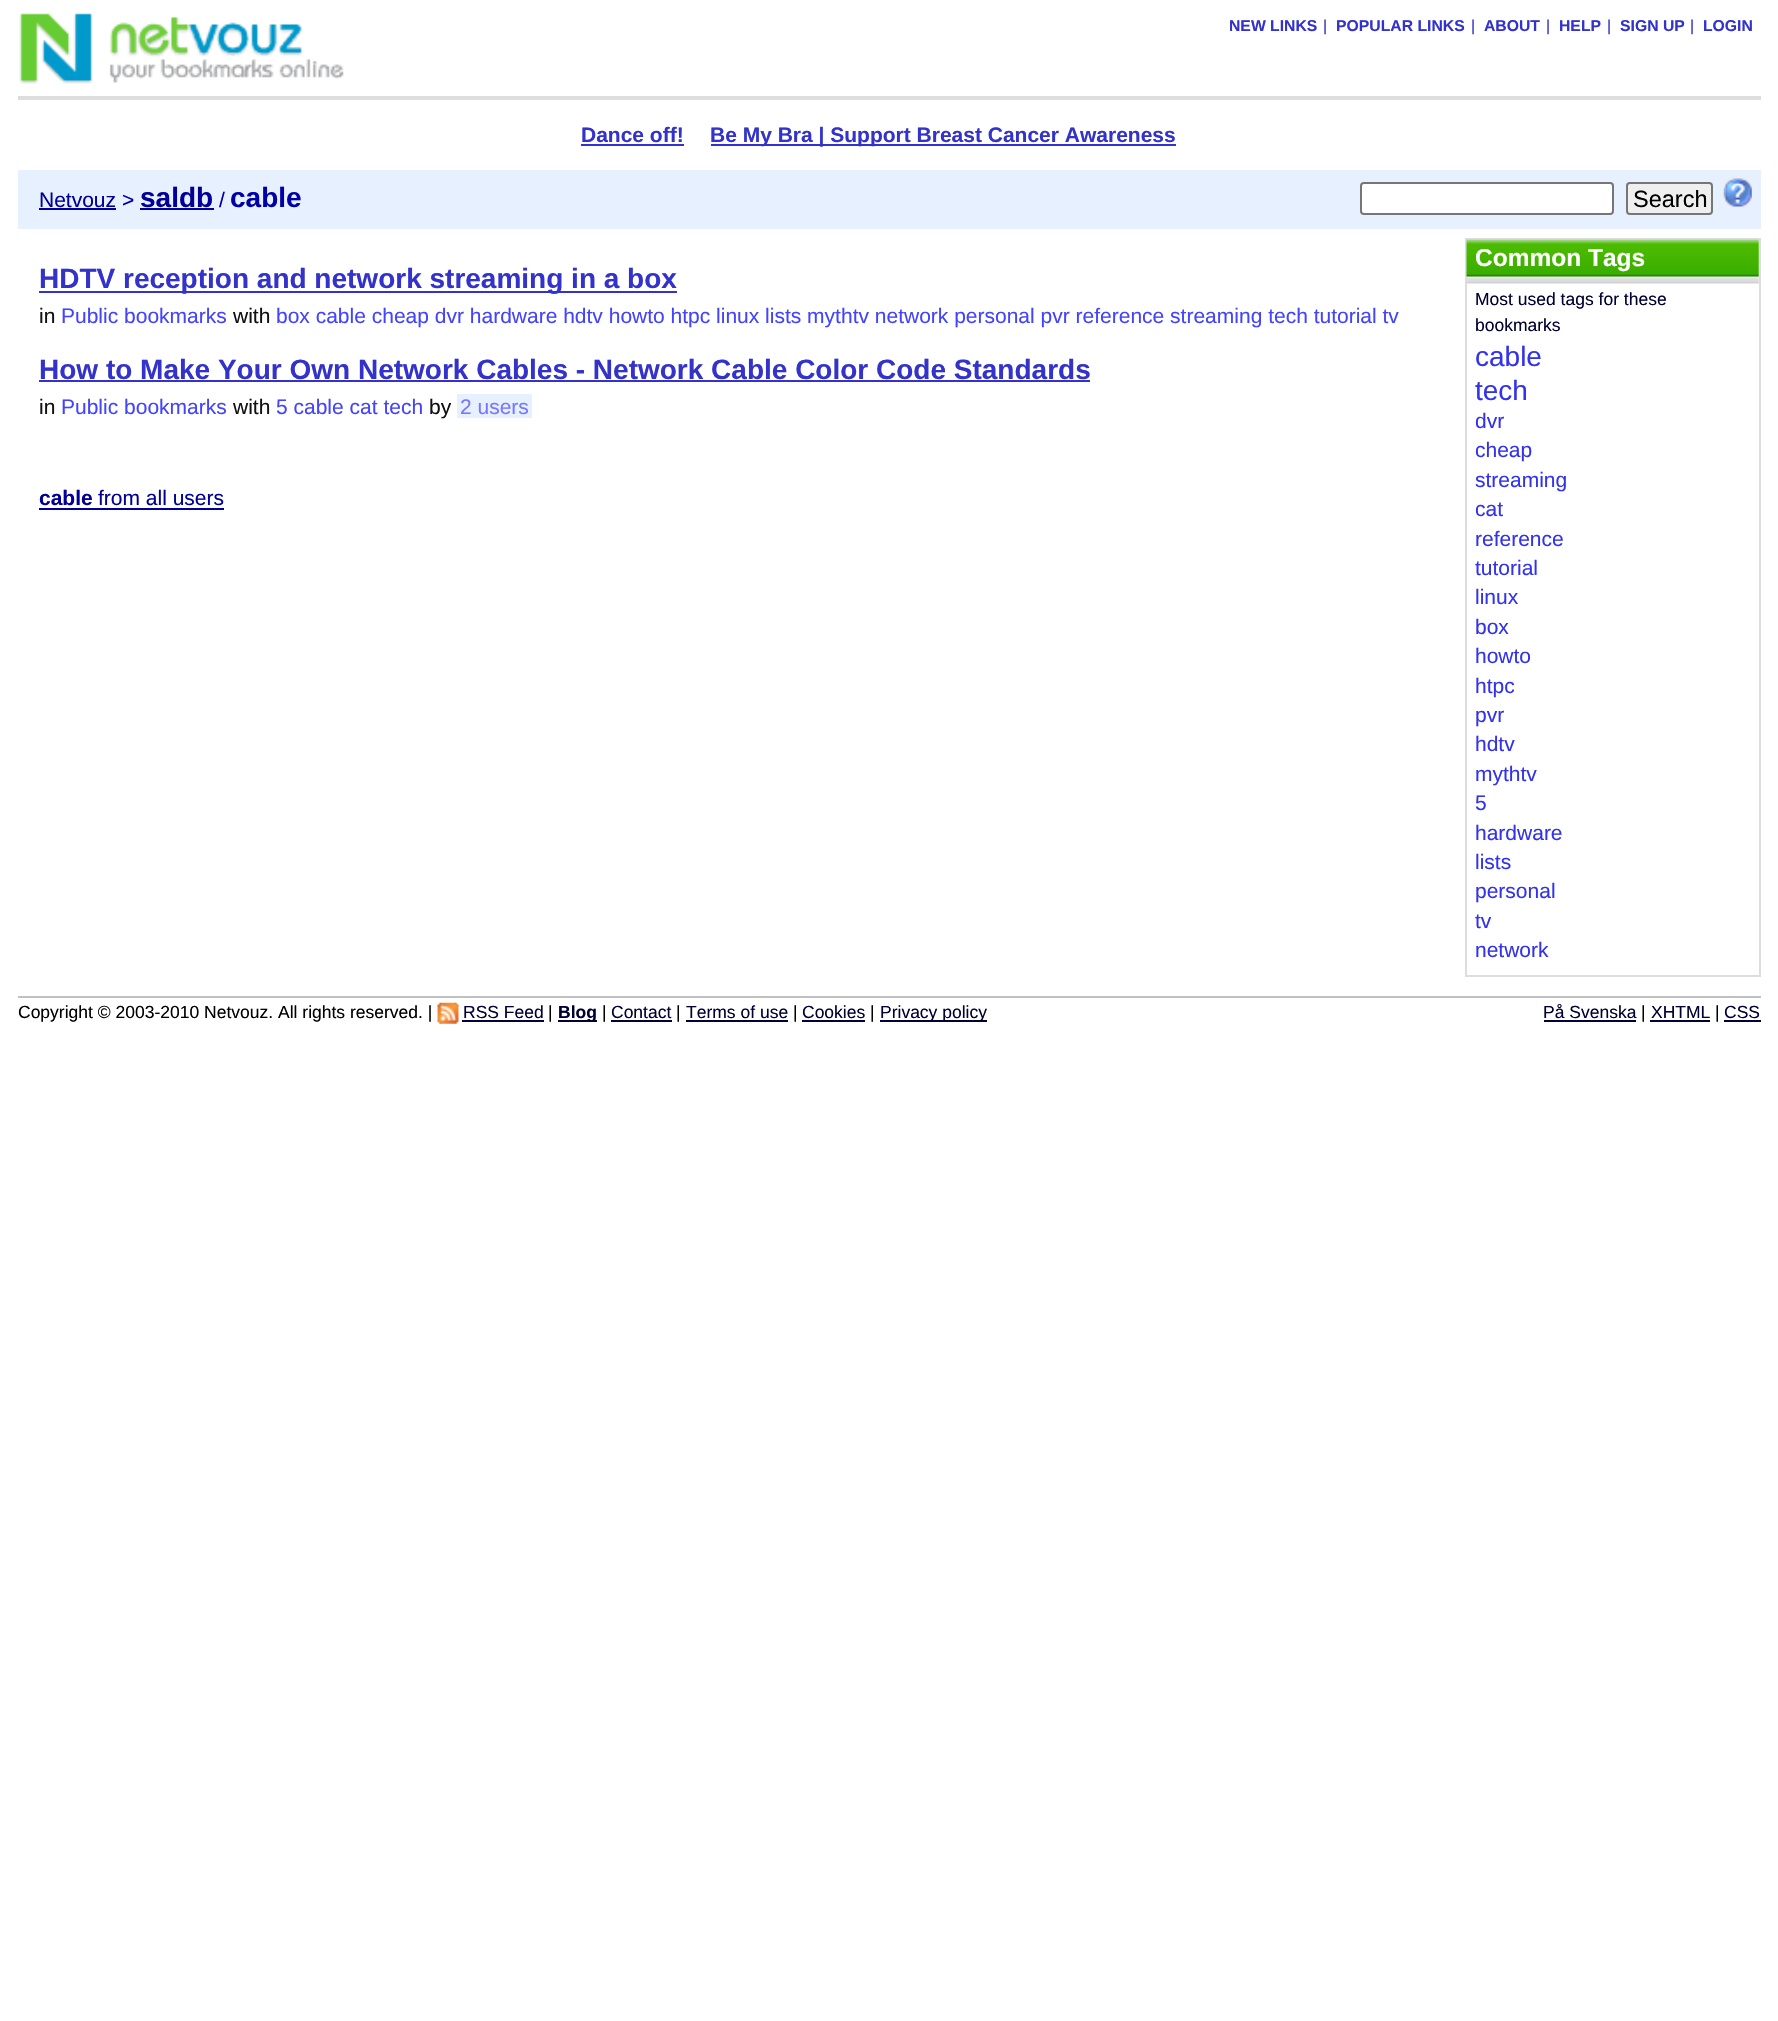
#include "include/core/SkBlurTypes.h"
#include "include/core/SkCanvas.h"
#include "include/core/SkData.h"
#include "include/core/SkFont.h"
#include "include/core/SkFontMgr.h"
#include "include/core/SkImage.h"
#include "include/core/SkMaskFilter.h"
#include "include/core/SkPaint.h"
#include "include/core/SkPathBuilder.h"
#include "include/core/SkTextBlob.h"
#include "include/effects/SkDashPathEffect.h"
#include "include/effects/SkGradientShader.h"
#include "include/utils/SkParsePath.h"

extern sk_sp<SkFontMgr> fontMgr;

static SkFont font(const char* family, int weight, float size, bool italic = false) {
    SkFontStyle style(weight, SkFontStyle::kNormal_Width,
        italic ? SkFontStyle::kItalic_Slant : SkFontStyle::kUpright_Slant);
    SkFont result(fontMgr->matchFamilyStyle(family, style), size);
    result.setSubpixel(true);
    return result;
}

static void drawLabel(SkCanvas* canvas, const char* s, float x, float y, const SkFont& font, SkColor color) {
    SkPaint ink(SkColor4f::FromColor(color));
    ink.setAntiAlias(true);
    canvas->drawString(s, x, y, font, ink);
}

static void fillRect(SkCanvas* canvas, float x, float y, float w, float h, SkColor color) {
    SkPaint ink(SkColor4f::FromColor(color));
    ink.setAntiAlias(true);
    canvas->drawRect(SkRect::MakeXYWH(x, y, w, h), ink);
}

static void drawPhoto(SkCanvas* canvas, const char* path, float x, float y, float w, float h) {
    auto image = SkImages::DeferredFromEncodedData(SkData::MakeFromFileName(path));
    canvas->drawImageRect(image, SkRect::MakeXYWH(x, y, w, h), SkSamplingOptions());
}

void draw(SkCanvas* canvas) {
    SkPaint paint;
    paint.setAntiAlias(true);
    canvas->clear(0xFFFFFFFF);
    fillRect(canvas, 18, 96, 1743, 4, 0xFFDDDDDD);
    drawPhoto(canvas, "assets/img1.png", 19, 13, 325, 71);
    SkFont font1 = font("Liberation Sans", 700, 15.75f);
    drawLabel(canvas, "NEW LINKS", 1229, 31, font1, 0xFF3333CC);
    SkFont font2 = font("Liberation Sans", 400, 15.75f);
    drawLabel(canvas, "|", 1323, 31, font2, 0xFF3333CC);
    drawLabel(canvas, "POPULAR LINKS", 1336, 31, font1, 0xFF3333CC);
    drawLabel(canvas, "|", 1471, 31, font2, 0xFF3333CC);
    drawLabel(canvas, "ABOUT", 1484, 31, font1, 0xFF3333CC);
    drawLabel(canvas, "|", 1546, 31, font2, 0xFF3333CC);
    drawLabel(canvas, "HELP", 1559, 31, font1, 0xFF3333CC);
    drawLabel(canvas, "|", 1607, 31, font2, 0xFF3333CC);
    drawLabel(canvas, "SIGN UP", 1620, 31, font1, 0xFF3333CC);
    drawLabel(canvas, "|", 1690, 31, font2, 0xFF3333CC);
    drawLabel(canvas, "LOGIN", 1703, 31, font1, 0xFF3333CC);
    SkFont font3 = font("Liberation Sans", 700, 21);
    drawLabel(canvas, "Dance off!", 581, 142, font3, 0xFF3333CC);
    fillRect(canvas, 581, 144, 103, 2, 0xFF3333CC);
    fillRect(canvas, 711, 144, 465, 2, 0xFF3333CC);
    drawLabel(canvas, "Be My Bra | Support Breast Cancer Awareness", 710, 142, font3, 0xFF3333CC);
    fillRect(canvas, 18, 170, 1743, 59, 0xFFE6F0FF);
    SkFont font4 = font("Liberation Sans", 400, 21);
    drawLabel(canvas, "Netvouz", 39, 207, font4, 0xFF000099);
    fillRect(canvas, 39, 208, 77, 2, 0xFF000099);
    drawLabel(canvas, ">", 122, 207, font4, 0xFF0000AA);
    SkFont font5 = font("Liberation Sans", 700, 28);
    drawLabel(canvas, "saldb", 140, 207, font5, 0xFF000099);
    drawLabel(canvas, "/", 219, 207, font4, 0xFF0000AA);
    fillRect(canvas, 140, 208, 74, 2, 0xFF000099);
    drawLabel(canvas, "cable", 230, 207, font5, 0xFF0000AA);
    paint.setColor(0xFFFFFFFF);
    canvas->drawRoundRect(SkRect::MakeXYWH(1361, 183, 252, 31), 3, 3, paint);
    paint.setStroke(true);
    paint.setStrokeWidth(2);
    paint.setColor(0xFF767676);
    canvas->drawRoundRect(SkRect::MakeXYWH(1361, 183, 252, 31), 3, 3, paint);
    paint.setStroke(false);
    paint.setColor(0xFFEFEFEF);
    canvas->drawRoundRect(SkRect::MakeXYWH(1627, 183, 85, 31), 3, 3, paint);
    paint.setStroke(true);
    paint.setColor(0xFF767676);
    canvas->drawRoundRect(SkRect::MakeXYWH(1627, 183, 85, 31), 3, 3, paint);
    SkFont font6 = font("Liberation Sans", 400, 23.5f);
    drawLabel(canvas, "Search", 1633, 207, font6, 0xFF000000);
    drawPhoto(canvas, "assets/img2.png", 1723, 178, 29, 29);
    fillRect(canvas, 39, 291, 638, 2, 0xFF3333CC);
    drawLabel(canvas, "HDTV reception and network streaming in a box", 39, 288, font5, 0xFF3333CC);
    drawLabel(canvas, "in", 39, 323, font4, 0xFF111111);
    drawLabel(canvas, "Public bookmarks", 61, 323, font4, 0xFF4444FF);
    drawLabel(canvas, "with", 233, 323, font4, 0xFF111111);
    drawLabel(canvas, "box cable cheap dvr hardware hdtv howto htpc linux lists mythtv network personal pvr reference streaming tech tutorial tv", 276, 323, font4, 0xFF4444FF);
    drawLabel(canvas, "How to Make Your Own Network Cables - Network Cable Color Code Standards", 39, 379, font5, 0xFF3333CC);
    fillRect(canvas, 39, 380, 1051, 2, 0xFF3333CC);
    drawLabel(canvas, "in", 39, 414, font4, 0xFF111111);
    drawLabel(canvas, "Public bookmarks", 61, 414, font4, 0xFF4444FF);
    drawLabel(canvas, "with", 233, 414, font4, 0xFF111111);
    drawLabel(canvas, "5 cable cat tech", 276, 414, font4, 0xFF4444FF);
    drawLabel(canvas, "by", 429, 414, font4, 0xFF111111);
    fillRect(canvas, 457, 394, 75, 24, 0xFFE6F0FF);
    drawLabel(canvas, "2 users", 460, 414, font4, 0xFF7777FF);
    drawLabel(canvas, "cable", 39, 505, font3, 0xFF000099);
    fillRect(canvas, 39, 508, 185, 2, 0xFF000099);
    drawLabel(canvas, "from all users", 98, 505, font4, 0xFF000099);
    paint.setColor(0xFFDDDDDD);
    canvas->drawRect(SkRect::MakeXYWH(1466, 239, 294, 737), paint);
    drawPhoto(canvas, "assets/img3.png", 1466, 239, 293, 45);
    SkFont font7 = font("Liberation Sans", 700, 24.5f);
    drawLabel(canvas, "Common Tags", 1475, 266, font7, 0xFFFFFFFF);
    SkFont font8 = font("Liberation Sans", 400, 17.5f);
    drawLabel(canvas, "Most used tags for these", 1475, 305, font8, 0xFF000033);
    drawLabel(canvas, "bookmarks", 1475, 331, font8, 0xFF000033);
    SkFont font9 = font("Liberation Sans", 400, 28);
    drawLabel(canvas, "cable", 1475, 366, font9, 0xFF3333EE);
    drawLabel(canvas, "tech", 1475, 400, font9, 0xFF3333EE);
    drawLabel(canvas, "dvr", 1475, 428, font4, 0xFF3333EE);
    drawLabel(canvas, "cheap", 1475, 457, font4, 0xFF3333EE);
    drawLabel(canvas, "streaming", 1475, 487, font4, 0xFF3333EE);
    drawLabel(canvas, "cat", 1475, 516, font4, 0xFF3333EE);
    drawLabel(canvas, "reference", 1475, 546, font4, 0xFF3333EE);
    drawLabel(canvas, "tutorial", 1475, 575, font4, 0xFF3333EE);
    drawLabel(canvas, "linux", 1475, 604, font4, 0xFF3333EE);
    drawLabel(canvas, "box", 1475, 634, font4, 0xFF3333EE);
    drawLabel(canvas, "howto", 1475, 663, font4, 0xFF3333EE);
    drawLabel(canvas, "htpc", 1475, 693, font4, 0xFF3333EE);
    drawLabel(canvas, "pvr", 1475, 722, font4, 0xFF3333EE);
    drawLabel(canvas, "hdtv", 1475, 751, font4, 0xFF3333EE);
    drawLabel(canvas, "mythtv", 1475, 781, font4, 0xFF3333EE);
    drawLabel(canvas, "5", 1475, 810, font4, 0xFF3333EE);
    drawLabel(canvas, "hardware", 1475, 840, font4, 0xFF3333EE);
    drawLabel(canvas, "lists", 1475, 869, font4, 0xFF3333EE);
    drawLabel(canvas, "personal", 1475, 898, font4, 0xFF3333EE);
    drawLabel(canvas, "tv", 1475, 928, font4, 0xFF3333EE);
    drawLabel(canvas, "network", 1475, 957, font4, 0xFF3333EE);
    fillRect(canvas, 18, 996, 1743, 2, 0xFFC0C0C0);
    drawLabel(canvas, "Copyright © 2003-2010 Netvouz. All rights reserved. |", 18, 1018, font8, 0xFF000000);
    drawPhoto(canvas, "assets/img4.png", 437, 1002, 22, 22);
    drawLabel(canvas, "RSS Feed", 463, 1018, font8, 0xFF000033);
    fillRect(canvas, 462, 1020, 82, 2, 0xFF000033);
    drawLabel(canvas, "|", 548, 1018, font8, 0xFF000000);
    fillRect(canvas, 558, 1020, 39, 2, 0xFF000033);
    SkFont font10 = font("Liberation Sans", 700, 17.5f);
    drawLabel(canvas, "Blog", 558, 1018, font10, 0xFF000033);
    drawLabel(canvas, "|", 602, 1018, font8, 0xFF000000);
    drawLabel(canvas, "Contact", 611, 1018, font8, 0xFF000033);
    fillRect(canvas, 611, 1020, 61, 2, 0xFF000033);
    drawLabel(canvas, "|", 676, 1018, font8, 0xFF000000);
    drawLabel(canvas, "Terms of use", 686, 1018, font8, 0xFF000033);
    fillRect(canvas, 686, 1020, 102, 2, 0xFF000033);
    drawLabel(canvas, "|", 793, 1018, font8, 0xFF000000);
    drawLabel(canvas, "Cookies", 802, 1018, font8, 0xFF000033);
    fillRect(canvas, 802, 1020, 63, 2, 0xFF000033);
    drawLabel(canvas, "|", 870, 1018, font8, 0xFF000000);
    fillRect(canvas, 880, 1020, 107, 2, 0xFF000033);
    drawLabel(canvas, "Privacy policy", 880, 1018, font8, 0xFF000033);
    drawLabel(canvas, "På Svenska", 1543, 1018, font8, 0xFF000033);
    fillRect(canvas, 1544, 1020, 92, 2, 0xFF000033);
    drawLabel(canvas, "|", 1641, 1018, font8, 0xFF000000);
    drawLabel(canvas, "XHTML", 1651, 1018, font8, 0xFF000033);
    fillRect(canvas, 1650, 1020, 60, 2, 0xFF000033);
    drawLabel(canvas, "|", 1715, 1018, font8, 0xFF000000);
    drawLabel(canvas, "CSS", 1724, 1018, font8, 0xFF000033);
    fillRect(canvas, 1724, 1020, 37, 2, 0xFF000033);
}
